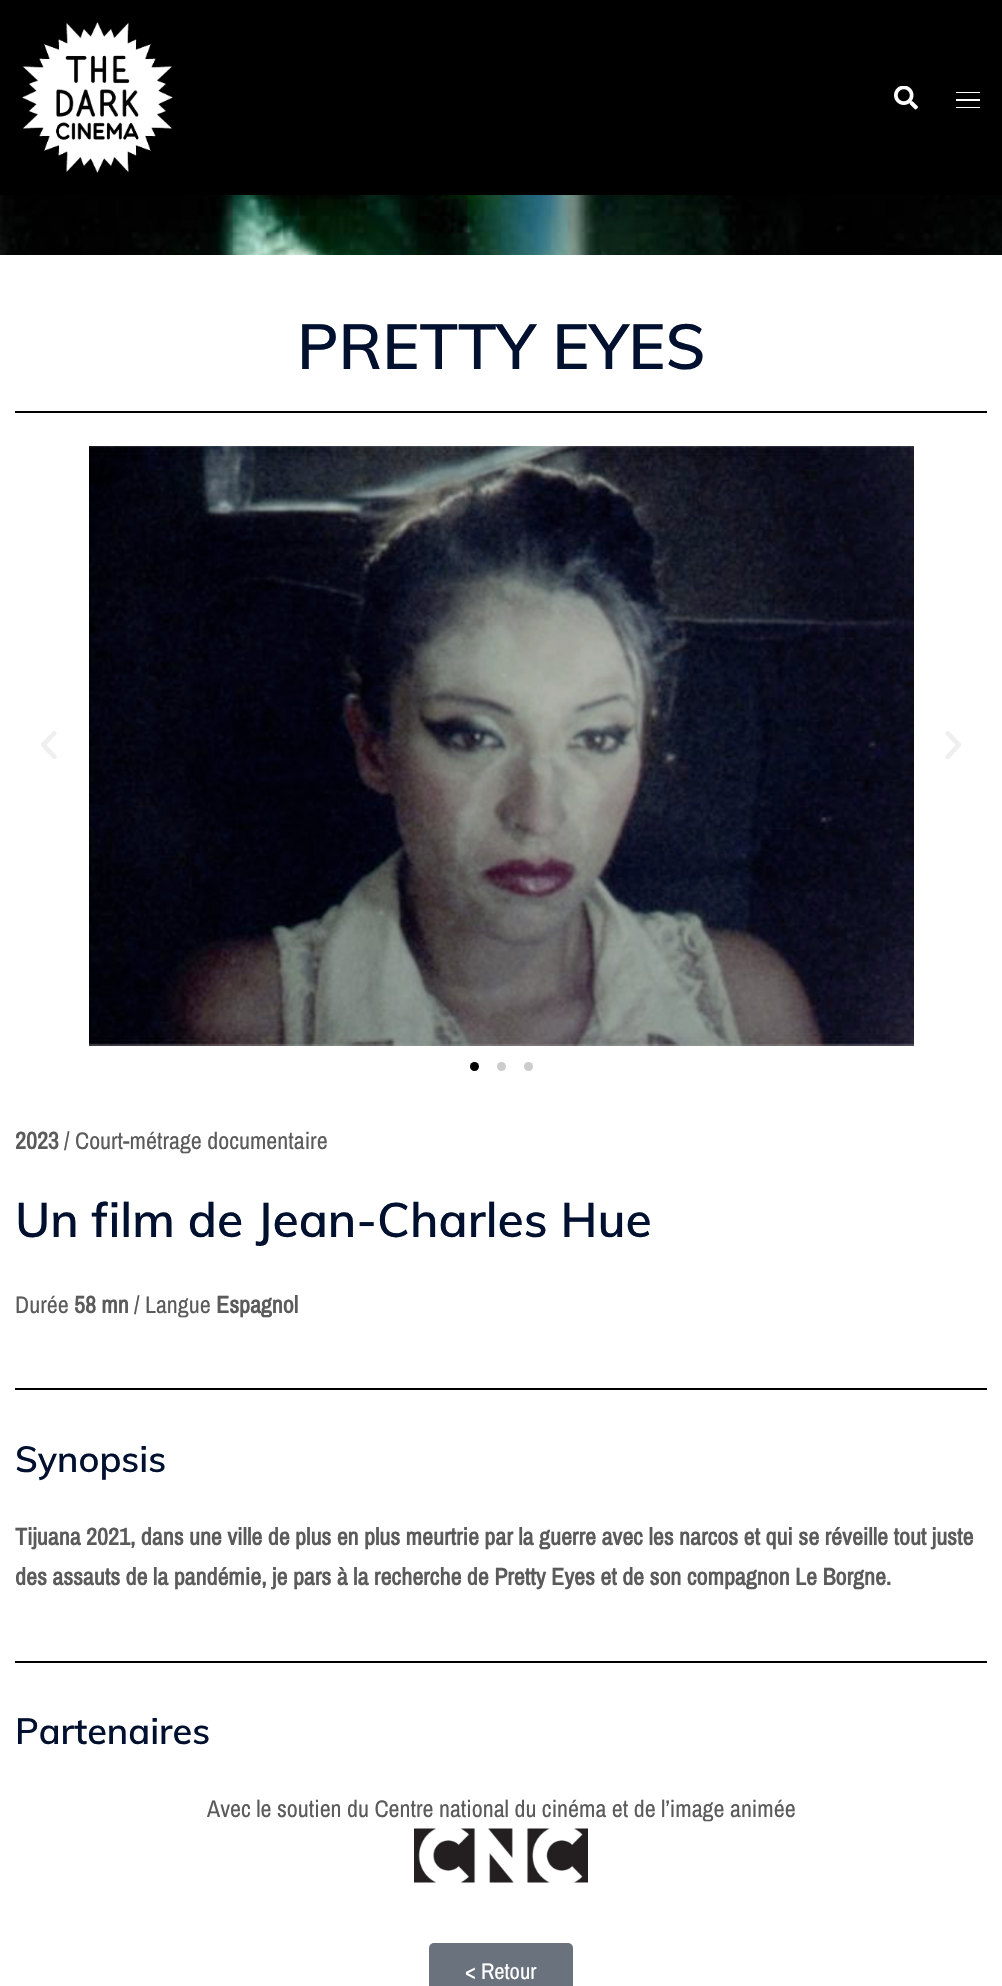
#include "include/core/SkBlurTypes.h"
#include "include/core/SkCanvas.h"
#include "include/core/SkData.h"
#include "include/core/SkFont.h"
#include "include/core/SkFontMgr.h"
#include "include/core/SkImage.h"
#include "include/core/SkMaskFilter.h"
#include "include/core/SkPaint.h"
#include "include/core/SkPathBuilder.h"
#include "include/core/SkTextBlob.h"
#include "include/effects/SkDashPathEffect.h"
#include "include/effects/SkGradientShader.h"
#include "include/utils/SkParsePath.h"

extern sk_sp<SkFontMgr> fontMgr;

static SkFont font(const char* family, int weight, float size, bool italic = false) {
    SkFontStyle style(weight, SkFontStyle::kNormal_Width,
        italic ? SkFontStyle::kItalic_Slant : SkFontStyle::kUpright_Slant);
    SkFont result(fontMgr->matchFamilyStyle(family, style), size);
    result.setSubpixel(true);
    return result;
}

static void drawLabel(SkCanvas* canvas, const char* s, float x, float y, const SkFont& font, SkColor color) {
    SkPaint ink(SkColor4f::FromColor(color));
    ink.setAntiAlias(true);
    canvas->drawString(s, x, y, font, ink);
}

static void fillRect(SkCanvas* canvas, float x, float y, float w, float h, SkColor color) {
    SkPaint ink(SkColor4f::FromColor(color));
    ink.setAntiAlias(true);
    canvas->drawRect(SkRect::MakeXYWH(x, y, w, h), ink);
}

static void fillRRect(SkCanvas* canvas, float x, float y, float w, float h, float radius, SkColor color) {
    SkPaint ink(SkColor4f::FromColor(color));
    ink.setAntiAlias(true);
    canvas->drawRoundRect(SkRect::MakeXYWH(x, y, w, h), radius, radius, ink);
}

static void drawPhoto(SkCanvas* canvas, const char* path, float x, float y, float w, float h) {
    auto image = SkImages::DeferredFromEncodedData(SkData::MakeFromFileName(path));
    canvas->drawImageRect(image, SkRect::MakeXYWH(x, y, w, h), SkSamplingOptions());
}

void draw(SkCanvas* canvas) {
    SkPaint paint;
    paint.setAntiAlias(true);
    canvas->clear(0xFFFFFFFF);
    drawPhoto(canvas, "assets/img1.png", 0, 195, 1002, 60);
    fillRect(canvas, 0, 0, 1002, 195, 0xFF000000);
    drawPhoto(canvas, "assets/img2.png", 22, 22, 151, 151);
    drawPhoto(canvas, "assets/img3.png", 894, 86, 24, 24);
    fillRect(canvas, 956, 92, 24, 1, 0xFFFFFFFF);
    fillRect(canvas, 956, 99, 24, 2, 0xFFFFFFFF);
    fillRect(canvas, 956, 107, 24, 1, 0xFFFFFFFF);
    SkFont font1 = font("Muli", 600, 63);
    drawLabel(canvas, "PRETTY EYES", 297, 369, font1, 0xFF00102E);
    fillRect(canvas, 15, 411, 972, 2, 0xFF000000);
    drawPhoto(canvas, "assets/img4.png", 41, 731, 16, 28);
    drawPhoto(canvas, "assets/img5.png", 89, 446, 825, 600);
    drawPhoto(canvas, "assets/img6.png", 945, 731, 16, 28);
    paint.setColor(0xFF000000);
    canvas->drawCircle(474.5f, 1066.5f, 4.5f, paint);
    paint.setColor(0xFFCCCCCC);
    canvas->drawCircle(501.5f, 1066.5f, 4.5f, paint);
    canvas->drawCircle(528.5f, 1066.5f, 4.5f, paint);
    SkFont font2 = font("Archivo Narrow", 700, 24);
    drawLabel(canvas, "2023", 15, 1149, font2, 0xFF5B5B5B);
    SkFont font3 = font("Archivo Narrow", 400, 24);
    drawLabel(canvas, "/ Court-métrage documentaire", 64, 1149, font3, 0xFF5B5B5B);
    SkFont font4 = font("Muli", 600, 48);
    drawLabel(canvas, "Un film de Jean-Charles Hue", 15, 1237, font4, 0xFF00102E);
    drawLabel(canvas, "Durée", 15, 1313, font3, 0xFF5B5B5B);
    drawLabel(canvas, "58 mn", 74, 1313, font2, 0xFF5B5B5B);
    drawLabel(canvas, "/ Langue", 134, 1313, font3, 0xFF5B5B5B);
    drawLabel(canvas, "Espagnol", 216, 1313, font2, 0xFF5B5B5B);
    fillRect(canvas, 15, 1388, 972, 2, 0xFF000000);
    SkFont font5 = font("Muli", 600, 36);
    drawLabel(canvas, "Synopsis", 15, 1472, font5, 0xFF00102E);
    drawLabel(canvas, "Tijuana 2021, dans une ville de plus en plus meurtrie par la guerre avec les narcos et qui se réveille tout juste", 15, 1545, font2, 0xFF5B5B5B);
    drawLabel(canvas, "des assauts de la pandémie, je pars à la recherche de Pretty Eyes et de son compagnon Le Borgne.", 15, 1585, font2, 0xFF5B5B5B);
    fillRect(canvas, 15, 1661, 972, 2, 0xFF000000);
    drawLabel(canvas, "Partenaires", 15, 1744, font5, 0xFF00102E);
    drawLabel(canvas, "Avec le soutien du Centre national du cinéma et de l’image animée", 207, 1817, font3, 0xFF5B5B5B);
    drawPhoto(canvas, "assets/img7.png", 414, 1828, 174, 55);
    fillRRect(canvas, 429, 1943, 144, 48, 5, 0xFF69727D);
    SkFont font6 = font("Archivo Narrow", 400, 22.5f);
    drawLabel(canvas, "< Retour", 465, 1979, font6, 0xFFFFFFFF);
}
